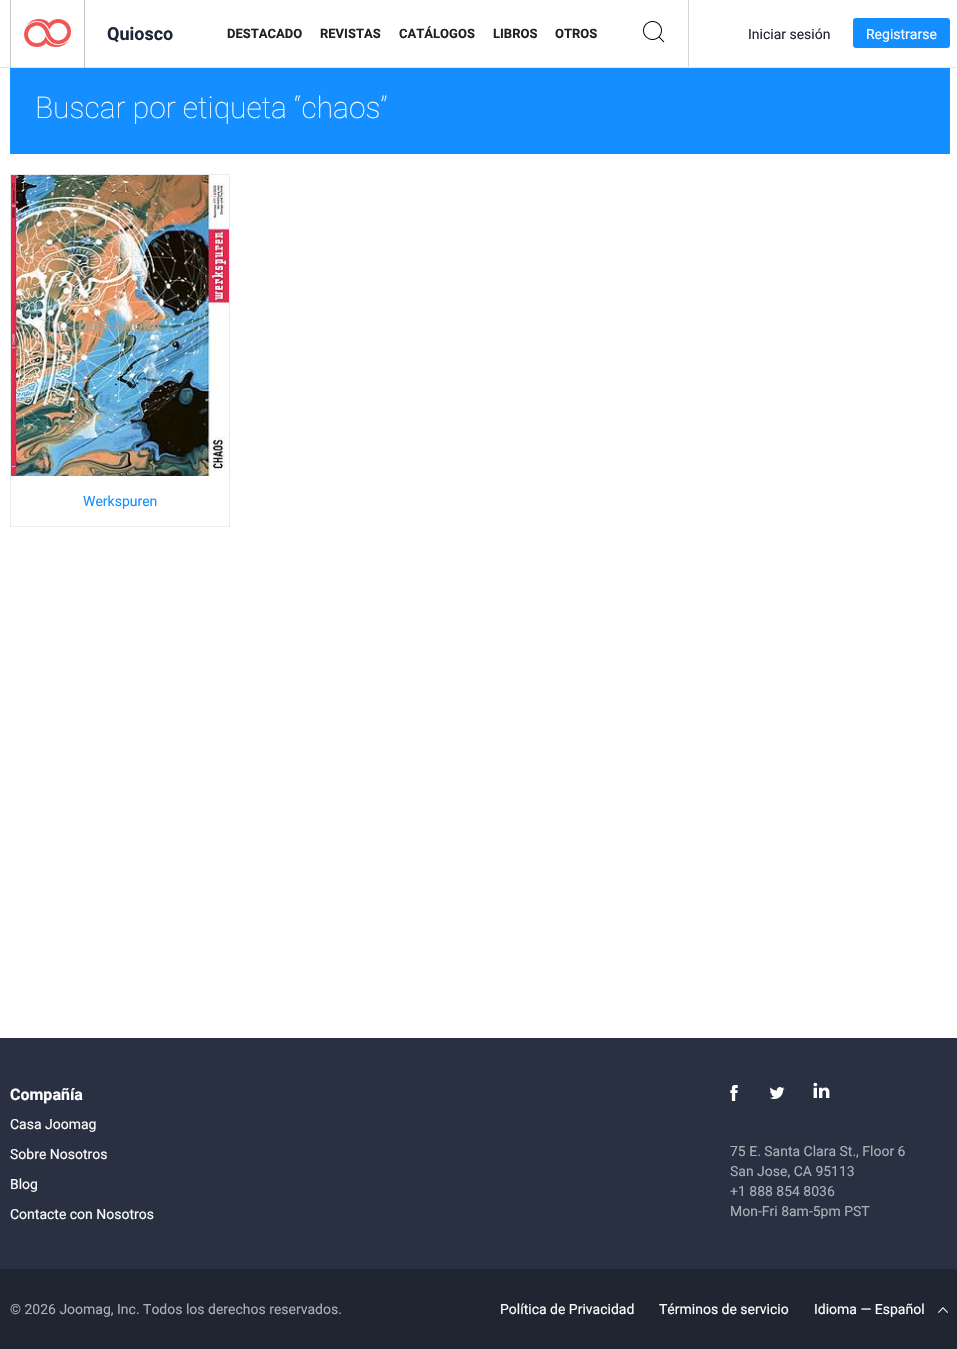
#include "include/core/SkBlurTypes.h"
#include "include/core/SkCanvas.h"
#include "include/core/SkData.h"
#include "include/core/SkFont.h"
#include "include/core/SkFontMgr.h"
#include "include/core/SkImage.h"
#include "include/core/SkMaskFilter.h"
#include "include/core/SkPaint.h"
#include "include/core/SkPathBuilder.h"
#include "include/core/SkTextBlob.h"
#include "include/effects/SkDashPathEffect.h"
#include "include/effects/SkGradientShader.h"
#include "include/utils/SkParsePath.h"

extern sk_sp<SkFontMgr> fontMgr;

static SkFont font(const char* family, int weight, float size, bool italic = false) {
    SkFontStyle style(weight, SkFontStyle::kNormal_Width,
        italic ? SkFontStyle::kItalic_Slant : SkFontStyle::kUpright_Slant);
    SkFont result(fontMgr->matchFamilyStyle(family, style), size);
    result.setSubpixel(true);
    return result;
}

static void drawLabel(SkCanvas* canvas, const char* s, float x, float y, const SkFont& font, SkColor color) {
    SkPaint ink(SkColor4f::FromColor(color));
    ink.setAntiAlias(true);
    canvas->drawString(s, x, y, font, ink);
}

static void fillRect(SkCanvas* canvas, float x, float y, float w, float h, SkColor color) {
    SkPaint ink(SkColor4f::FromColor(color));
    ink.setAntiAlias(true);
    canvas->drawRect(SkRect::MakeXYWH(x, y, w, h), ink);
}

static void fillRRect(SkCanvas* canvas, float x, float y, float w, float h, float radius, SkColor color) {
    SkPaint ink(SkColor4f::FromColor(color));
    ink.setAntiAlias(true);
    canvas->drawRoundRect(SkRect::MakeXYWH(x, y, w, h), radius, radius, ink);
}

static void drawPhoto(SkCanvas* canvas, const char* path, float x, float y, float w, float h) {
    auto image = SkImages::DeferredFromEncodedData(SkData::MakeFromFileName(path));
    canvas->drawImageRect(image, SkRect::MakeXYWH(x, y, w, h), SkSamplingOptions());
}

void draw(SkCanvas* canvas) {
    SkPaint paint;
    paint.setAntiAlias(true);
    canvas->clear(0xFFFFFFFF);
    fillRect(canvas, 0, 67, 957, 1, 0xFFE5E5E5);
    fillRect(canvas, 84, 0, 1, 68, 0xFFC6C6C6);
    fillRect(canvas, 10, 0, 1, 68, 0xFFC6C6C6);
    drawPhoto(canvas, "assets/img1.png", 24, 19, 47, 28);
    SkFont font1 = font("Roboto", 700, 18);
    drawLabel(canvas, "Quiosco", 107, 40, font1, 0xFF1E2638);
    SkFont font2 = font("Roboto", 700, 13);
    drawLabel(canvas, "DESTACADO", 227, 38, font2, 0xFF231F20);
    drawLabel(canvas, "REVISTAS", 320, 38, font2, 0xFF231F20);
    drawLabel(canvas, "CATÁLOGOS", 399, 38, font2, 0xFF231F20);
    drawLabel(canvas, "LIBROS", 493, 38, font2, 0xFF231F20);
    drawLabel(canvas, "OTROS", 555, 38, font2, 0xFF231F20);
    fillRect(canvas, 688, 0, 1, 67, 0xFFD2D7D9);
    drawPhoto(canvas, "assets/img2.png", 643, 21, 22, 22);
    SkFont font3 = font("Roboto", 400, 14);
    drawLabel(canvas, "Iniciar sesión", 748, 39, font3, 0xFF202532);
    fillRRect(canvas, 853, 18, 97, 30, 3, 0xFF158FFF);
    drawLabel(canvas, "Registrarse", 866, 39, font3, 0xFFFFFFFF);
    fillRect(canvas, 10, 68, 940, 86, 0xFF158FFF);
    SkFont font4 = font("Roboto", 100, 30);
    drawLabel(canvas, "Buscar por etiqueta “chaos”", 35, 118, font4, 0xFFFFFFFF);
    paint.setStroke(true);
    paint.setStrokeWidth(1);
    paint.setColor(0xFFE8EBEB);
    canvas->drawRect(SkRect::MakeXYWH(10.5f, 174.5f, 219, 352), paint);
    drawPhoto(canvas, "assets/img3.png", 11, 175, 218, 301);
    SkFont font5 = font("Roboto", 700, 14);
    drawLabel(canvas, "LEER AHORA", 78, 331, font5, 0xFFAEA191);
    drawLabel(canvas, "Werkspuren", 83, 506, font3, 0xFF158FFF);
    fillRect(canvas, 0, 1038, 957, 231, 0xFF293042);
    SkFont font6 = font("Roboto", 700, 16);
    drawLabel(canvas, "Compañía", 10, 1100, font6, 0xFFFFFFFF);
    drawLabel(canvas, "Casa Joomag", 10, 1129, font3, 0xFFFFFFFF);
    drawLabel(canvas, "Sobre Nosotros", 10, 1159, font3, 0xFFFFFFFF);
    drawLabel(canvas, "Blog", 10, 1189, font3, 0xFFFFFFFF);
    drawLabel(canvas, "Contacte con Nosotros", 10, 1219, font3, 0xFFFFFFFF);
    drawPhoto(canvas, "assets/img4.png", 730, 1085, 8, 16);
    drawPhoto(canvas, "assets/img5.png", 769, 1087, 16, 12);
    drawPhoto(canvas, "assets/img6.png", 813, 1082, 17, 16);
    drawLabel(canvas, "75 E. Santa Clara St., Floor 6", 730, 1156, font3, 0xFFABB2B6);
    drawLabel(canvas, "San Jose, CA 95113", 730, 1176, font3, 0xFFABB2B6);
    drawLabel(canvas, "+1 888 854 8036", 730, 1196, font3, 0xFFABB2B6);
    drawLabel(canvas, "Mon-Fri 8am-5pm PST", 730, 1216, font3, 0xFFABB2B6);
    fillRect(canvas, 0, 1269, 957, 80, 0xFF202532);
    drawLabel(canvas, "© 2026 Joomag, Inc. Todos los derechos reservados.", 10, 1314, font3, 0xFFABB2B6);
    drawLabel(canvas, "Política de Privacidad", 500, 1314, font3, 0xFFFFFFFF);
    drawLabel(canvas, "Términos de servicio", 659, 1314, font3, 0xFFFFFFFF);
    drawLabel(canvas, "Idioma — Español", 814, 1314, font3, 0xFFFFFFFF);
    drawPhoto(canvas, "assets/img7.png", 938, 1307, 10, 6);
}
